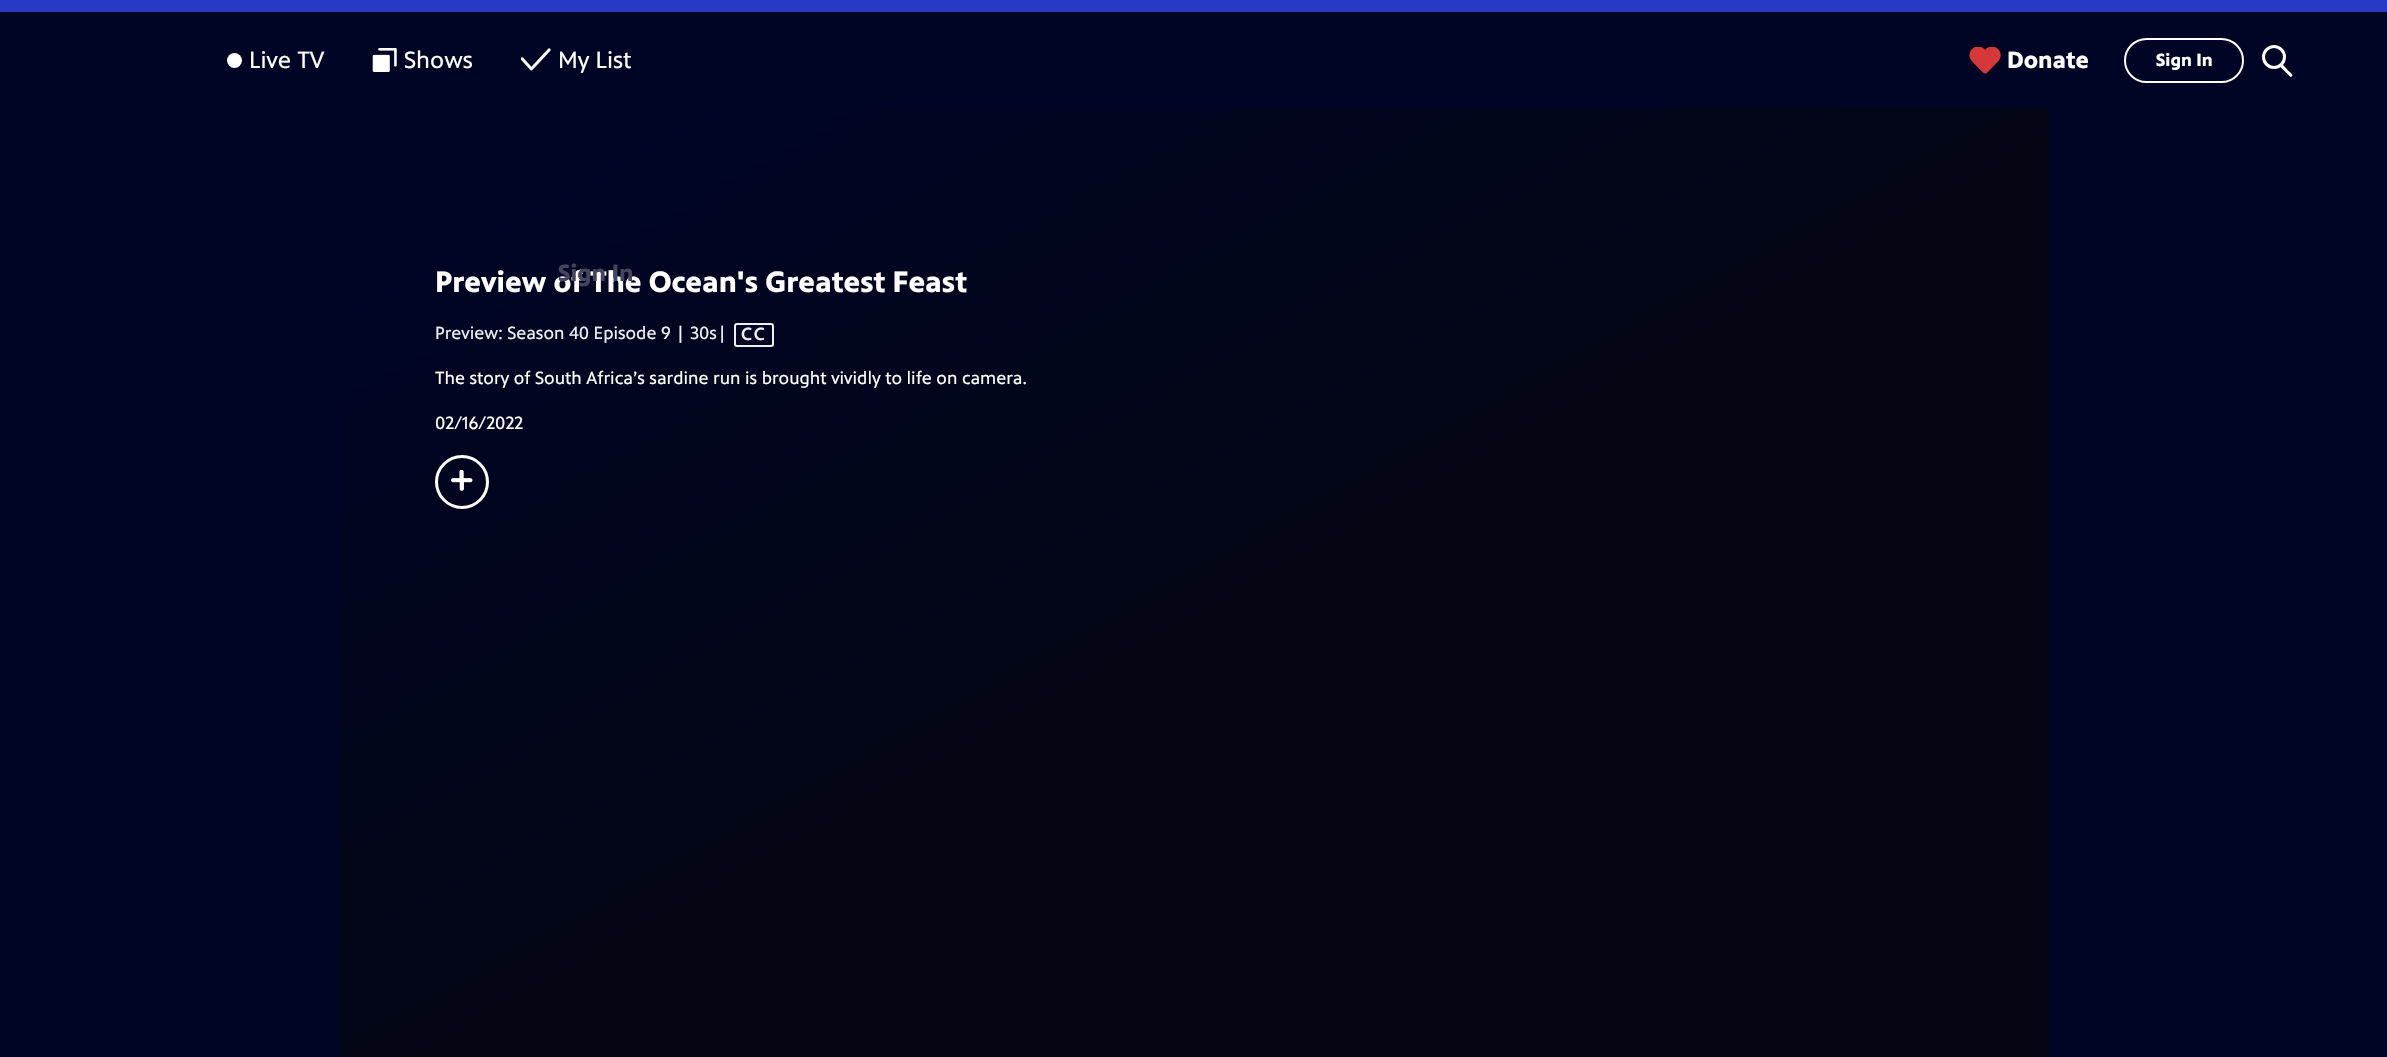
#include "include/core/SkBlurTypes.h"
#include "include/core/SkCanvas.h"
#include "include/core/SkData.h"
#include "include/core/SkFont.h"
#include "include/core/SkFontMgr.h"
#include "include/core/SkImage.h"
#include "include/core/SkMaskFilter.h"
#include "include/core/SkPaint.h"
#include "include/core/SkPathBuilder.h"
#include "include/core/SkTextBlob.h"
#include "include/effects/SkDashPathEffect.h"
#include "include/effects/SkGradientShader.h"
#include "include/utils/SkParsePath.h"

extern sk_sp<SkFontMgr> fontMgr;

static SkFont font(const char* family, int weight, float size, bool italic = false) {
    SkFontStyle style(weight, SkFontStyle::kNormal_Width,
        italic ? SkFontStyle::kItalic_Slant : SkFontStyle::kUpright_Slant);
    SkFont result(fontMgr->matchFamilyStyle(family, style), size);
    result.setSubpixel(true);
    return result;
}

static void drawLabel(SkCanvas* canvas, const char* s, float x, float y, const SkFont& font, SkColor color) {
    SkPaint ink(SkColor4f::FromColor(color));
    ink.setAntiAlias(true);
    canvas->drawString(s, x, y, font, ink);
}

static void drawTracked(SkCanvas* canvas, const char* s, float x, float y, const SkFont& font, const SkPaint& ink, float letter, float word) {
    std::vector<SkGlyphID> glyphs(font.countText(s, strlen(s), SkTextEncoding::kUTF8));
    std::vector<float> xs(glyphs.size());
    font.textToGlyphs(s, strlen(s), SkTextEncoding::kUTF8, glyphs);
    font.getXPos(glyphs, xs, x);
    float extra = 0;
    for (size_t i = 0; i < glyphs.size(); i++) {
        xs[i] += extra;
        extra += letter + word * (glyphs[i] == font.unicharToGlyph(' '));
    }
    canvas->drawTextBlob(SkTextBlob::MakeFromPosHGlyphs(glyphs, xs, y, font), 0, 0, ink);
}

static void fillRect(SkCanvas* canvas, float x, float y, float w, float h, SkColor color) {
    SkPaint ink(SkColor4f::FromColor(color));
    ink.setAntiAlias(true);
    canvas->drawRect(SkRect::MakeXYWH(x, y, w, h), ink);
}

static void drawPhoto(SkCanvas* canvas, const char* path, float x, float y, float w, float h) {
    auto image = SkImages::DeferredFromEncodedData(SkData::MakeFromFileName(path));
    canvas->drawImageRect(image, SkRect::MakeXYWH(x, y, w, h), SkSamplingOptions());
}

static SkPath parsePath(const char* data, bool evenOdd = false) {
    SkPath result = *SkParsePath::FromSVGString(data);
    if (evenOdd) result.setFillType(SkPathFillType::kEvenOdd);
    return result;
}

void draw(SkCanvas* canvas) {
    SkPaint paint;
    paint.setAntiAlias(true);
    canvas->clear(0xFF000525);
    fillRect(canvas, 0, 0, 2387, 12, 0xFF2638C4);
    paint.setColor(0xFFFFFFFF);
    canvas->drawCircle(234.5f, 60.5f, 7.5f, paint);
    SkFont font1 = font("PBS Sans", 400, 24);
    drawLabel(canvas, "Live TV", 249, 68, font1, 0xFFFFFFFF);
    drawPhoto(canvas, "assets/img1.png", 372, 48, 25, 24);
    drawLabel(canvas, "Shows", 404, 68, font1, 0xFFFFFFFF);
    drawPhoto(canvas, "assets/img2.png", 521, 48, 30, 23);
    drawLabel(canvas, "My List", 558, 68, font1, 0xFFFFFFFF);
    {
        const SkColor colors[] = {0xFF000525, 0xFF040613};
        const float stops[] = {0.1f, 0.55f};
        const SkPoint ends[] = {{783, -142}, {1605, 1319}};
        paint.setShader(SkGradientShader::MakeLinear(ends, colors, stops, 2, SkTileMode::kClamp));
        paint.setAlpha(255);
    }
    canvas->drawRect(SkRect::MakeXYWH(339, 108, 1710, 949), paint);
    SkFont font2 = font("PBS Sans", 700, 30);
    drawLabel(canvas, "Preview of The Ocean's Greatest Feast", 435, 292, font2, 0xFFFFFFFF);
    SkFont font3 = font("PBS Sans", 700, 24);
    drawLabel(canvas, "Sign In", 558, 281, font3, 0xFF43465C);
    drawPhoto(canvas, "assets/img3.png", 1969, 47, 32, 27);
    drawLabel(canvas, "Donate", 2007, 68, font3, 0xFFFFFFFF);
    paint.setStroke(true);
    paint.setStrokeWidth(2);
    paint.setShader(nullptr);
    paint.setColor(0xFFFFFFFF);
    canvas->drawRoundRect(SkRect::MakeXYWH(2125, 39, 118, 43), 21.5f, 21.5f, paint);
    SkFont font4 = font("PBS Sans", 700, 18);
    drawLabel(canvas, "Sign In", 2156, 66, font4, 0xFFFFFFFF);
    paint.setStrokeWidth(3);
    canvas->drawCircle(2274, 57, 10.5f, paint);
    paint.setStroke(false);
    canvas->drawPath(parsePath("M2290 76.5L2279.5 66V64.5C2281.5 62 2284.5 67 2285.5 67.5L2288.5 71C2289.5 72 2292 73.5 2292.5 75C2292.5 76.5 2291 77.5 2290 76.5Z"), paint);
    SkFont font5 = font("PBS Sans", 400, 18);
    drawLabel(canvas, "Preview: Season 40 Episode 9 | 30s|", 435, 339, font5, 0xFFEEF0F5);
    paint.setStroke(true);
    paint.setStrokeWidth(2);
    paint.setColor(0xFFEEF0F5);
    canvas->drawRoundRect(SkRect::MakeXYWH(735, 324, 38, 22), 2, 2, paint);
    SkFont font6 = font("PBS Sans", 500, 18);
    paint.setStroke(false);
    drawTracked(canvas, "CC", 741, 340, font6, paint, 2, 0);
    drawLabel(canvas, "The story of South Africa’s sardine run is brought vividly to life on camera.", 435, 384, font5, 0xFFFFFFFF);
    drawLabel(canvas, "02/16/2022", 435, 429, font5, 0xFFFFFFFF);
    paint.setStroke(true);
    paint.setStrokeWidth(3);
    paint.setColor(0xFFFFFFFF);
    canvas->drawCircle(462, 482, 25.5f, paint);
    drawPhoto(canvas, "assets/img4.png", 451, 470, 22, 21);
}
